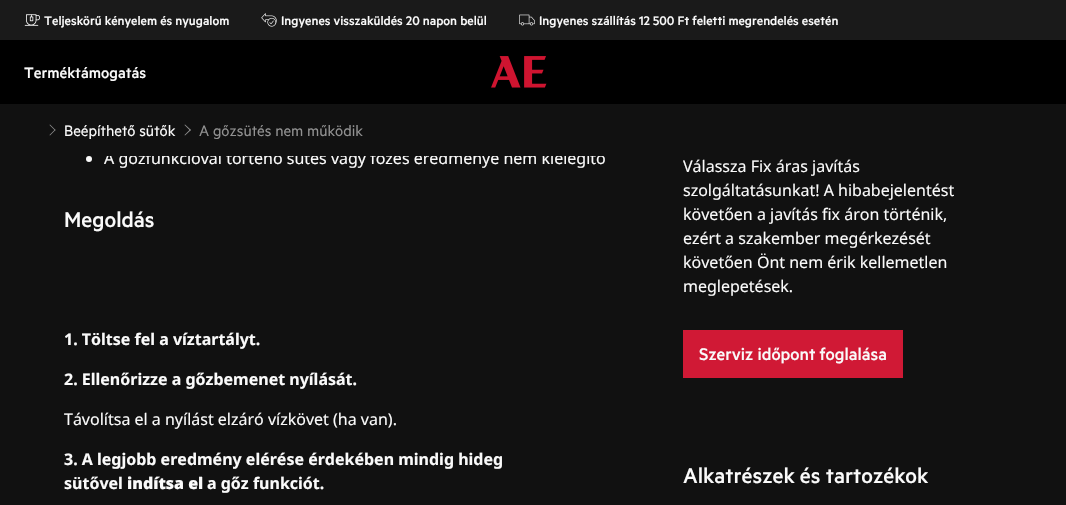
#include "include/core/SkBlurTypes.h"
#include "include/core/SkCanvas.h"
#include "include/core/SkData.h"
#include "include/core/SkFont.h"
#include "include/core/SkFontMgr.h"
#include "include/core/SkImage.h"
#include "include/core/SkMaskFilter.h"
#include "include/core/SkPaint.h"
#include "include/core/SkPathBuilder.h"
#include "include/core/SkTextBlob.h"
#include "include/effects/SkDashPathEffect.h"
#include "include/effects/SkGradientShader.h"
#include "include/utils/SkParsePath.h"

extern sk_sp<SkFontMgr> fontMgr;

static SkFont font(const char* family, int weight, float size, bool italic = false) {
    SkFontStyle style(weight, SkFontStyle::kNormal_Width,
        italic ? SkFontStyle::kItalic_Slant : SkFontStyle::kUpright_Slant);
    SkFont result(fontMgr->matchFamilyStyle(family, style), size);
    result.setSubpixel(true);
    return result;
}

static void drawLabel(SkCanvas* canvas, const char* s, float x, float y, const SkFont& font, SkColor color) {
    SkPaint ink(SkColor4f::FromColor(color));
    ink.setAntiAlias(true);
    canvas->drawString(s, x, y, font, ink);
}

static void fillRect(SkCanvas* canvas, float x, float y, float w, float h, SkColor color) {
    SkPaint ink(SkColor4f::FromColor(color));
    ink.setAntiAlias(true);
    canvas->drawRect(SkRect::MakeXYWH(x, y, w, h), ink);
}

static void drawPhoto(SkCanvas* canvas, const char* path, float x, float y, float w, float h) {
    auto image = SkImages::DeferredFromEncodedData(SkData::MakeFromFileName(path));
    canvas->drawImageRect(image, SkRect::MakeXYWH(x, y, w, h), SkSamplingOptions());
}

static SkPath parsePath(const char* data, bool evenOdd = false) {
    SkPath result = *SkParsePath::FromSVGString(data);
    if (evenOdd) result.setFillType(SkPathFillType::kEvenOdd);
    return result;
}

void draw(SkCanvas* canvas) {
    SkPaint paint;
    paint.setAntiAlias(true);
    canvas->clear(0xFF111111);
    SkFont font1 = font("Noto Sans", 400, 16);
    drawLabel(canvas, "A gőzfunkcióval történő sütés vagy főzés eredménye nem kielégítő", 104, 164, font1, 0xFFFAFAFA);
    fillRect(canvas, 107, 151, 497, 5, 0xFF111111);
    fillRect(canvas, 0, 0, 1066, 40, 0xFF1A1A1A);
    drawPhoto(canvas, "assets/img1.png", 24, 14, 16, 12);
    SkFont font2 = font("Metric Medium", 500, 14);
    drawLabel(canvas, "Teljeskörű kényelem és nyugalom", 44, 25, font2, 0xFFFAFAFA);
    drawPhoto(canvas, "assets/img2.png", 261, 13, 16, 14);
    drawLabel(canvas, "Ingyenes visszaküldés 20 napon belül", 281, 25, font2, 0xFFFAFAFA);
    drawPhoto(canvas, "assets/img3.png", 519, 14, 16, 12);
    drawLabel(canvas, "Ingyenes szállítás 12 500 Ft feletti megrendelés esetén", 539, 25, font2, 0xFFFAFAFA);
    fillRect(canvas, 0, 40, 1066, 64, 0xFF000000);
    SkFont font3 = font("Metric Medium", 500, 17);
    drawLabel(canvas, "Terméktámogatás", 24, 78, font3, 0xFFFAFAFA);
    drawPhoto(canvas, "assets/img4.png", 491, 56, 56, 32);
    paint.setColor(0xFF919191);
    canvas->drawPath(parsePath("M50 124.5L55.5 130L55 130.5L49.5 125Z"), paint);
    canvas->drawPath(parsePath("M55 129.5L55.5 130L50 135.5L49.5 135Z"), paint);
    SkFont font4 = font("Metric", 400, 17);
    drawLabel(canvas, "Beépíthető sütők", 64, 136, font4, 0xFFFAFAFA);
    canvas->drawPath(parsePath("M185 124.5L191 130L190 130.5L184.5 125Z"), paint);
    canvas->drawPath(parsePath("M190 129.5L191 130L185 135.5L184.5 135Z"), paint);
    drawLabel(canvas, "A gőzsütés nem működik", 199, 136, font4, 0xFF919191);
    paint.setColor(0xFFFAFAFA);
    canvas->drawCircle(89, 159, 3, paint);
    SkFont font5 = font("Metric Medium", 500, 24);
    drawLabel(canvas, "Megoldás", 64, 227, font5, 0xFFFAFAFA);
    SkFont font6 = font("Noto Sans", 700, 16);
    drawLabel(canvas, "1. Töltse fel a víztartályt.", 64, 345, font6, 0xFFFAFAFA);
    drawLabel(canvas, "2. Ellenőrizze a gőzbemenet nyílását.", 64, 385, font6, 0xFFFAFAFA);
    drawLabel(canvas, "Távolítsa el a nyílást elzáró vízkövet (ha van).", 64, 425, font1, 0xFFFAFAFA);
    drawLabel(canvas, "3. A legjobb eredmény elérése érdekében mindig hideg", 64, 465, font6, 0xFFFAFAFA);
    drawLabel(canvas, "sütővel", 64, 489, font6, 0xFFFAFAFA);
    SkFont font7 = font("Noto Sans", 900, 16);
    drawLabel(canvas, "indítsa el", 127, 489, font7, 0xFFFAFAFA);
    drawLabel(canvas, "a gőz funkciót.", 207, 489, font6, 0xFFFAFAFA);
    drawLabel(canvas, "Válassza Fix áras javítás", 683, 172, font1, 0xFFFAFAFA);
    drawLabel(canvas, "szolgáltatásunkat! A hibabejelentést", 683, 196, font1, 0xFFFAFAFA);
    drawLabel(canvas, "követően a javítás fix áron történik,", 683, 220, font1, 0xFFFAFAFA);
    drawLabel(canvas, "ezért a szakember megérkezését", 683, 244, font1, 0xFFFAFAFA);
    drawLabel(canvas, "követően Önt nem érik kellemetlen", 683, 268, font1, 0xFFFAFAFA);
    drawLabel(canvas, "meglepetések.", 683, 292, font1, 0xFFFAFAFA);
    fillRect(canvas, 683, 330, 220, 48, 0xFFD01935);
    SkFont font8 = font("Metric Medium", 500, 19);
    drawLabel(canvas, "Szerviz időpont foglalása", 699, 360, font8, 0xFFFAFAFA);
    drawLabel(canvas, "Alkatrészek és tartozékok", 683, 483, font5, 0xFFFAFAFA);
}
